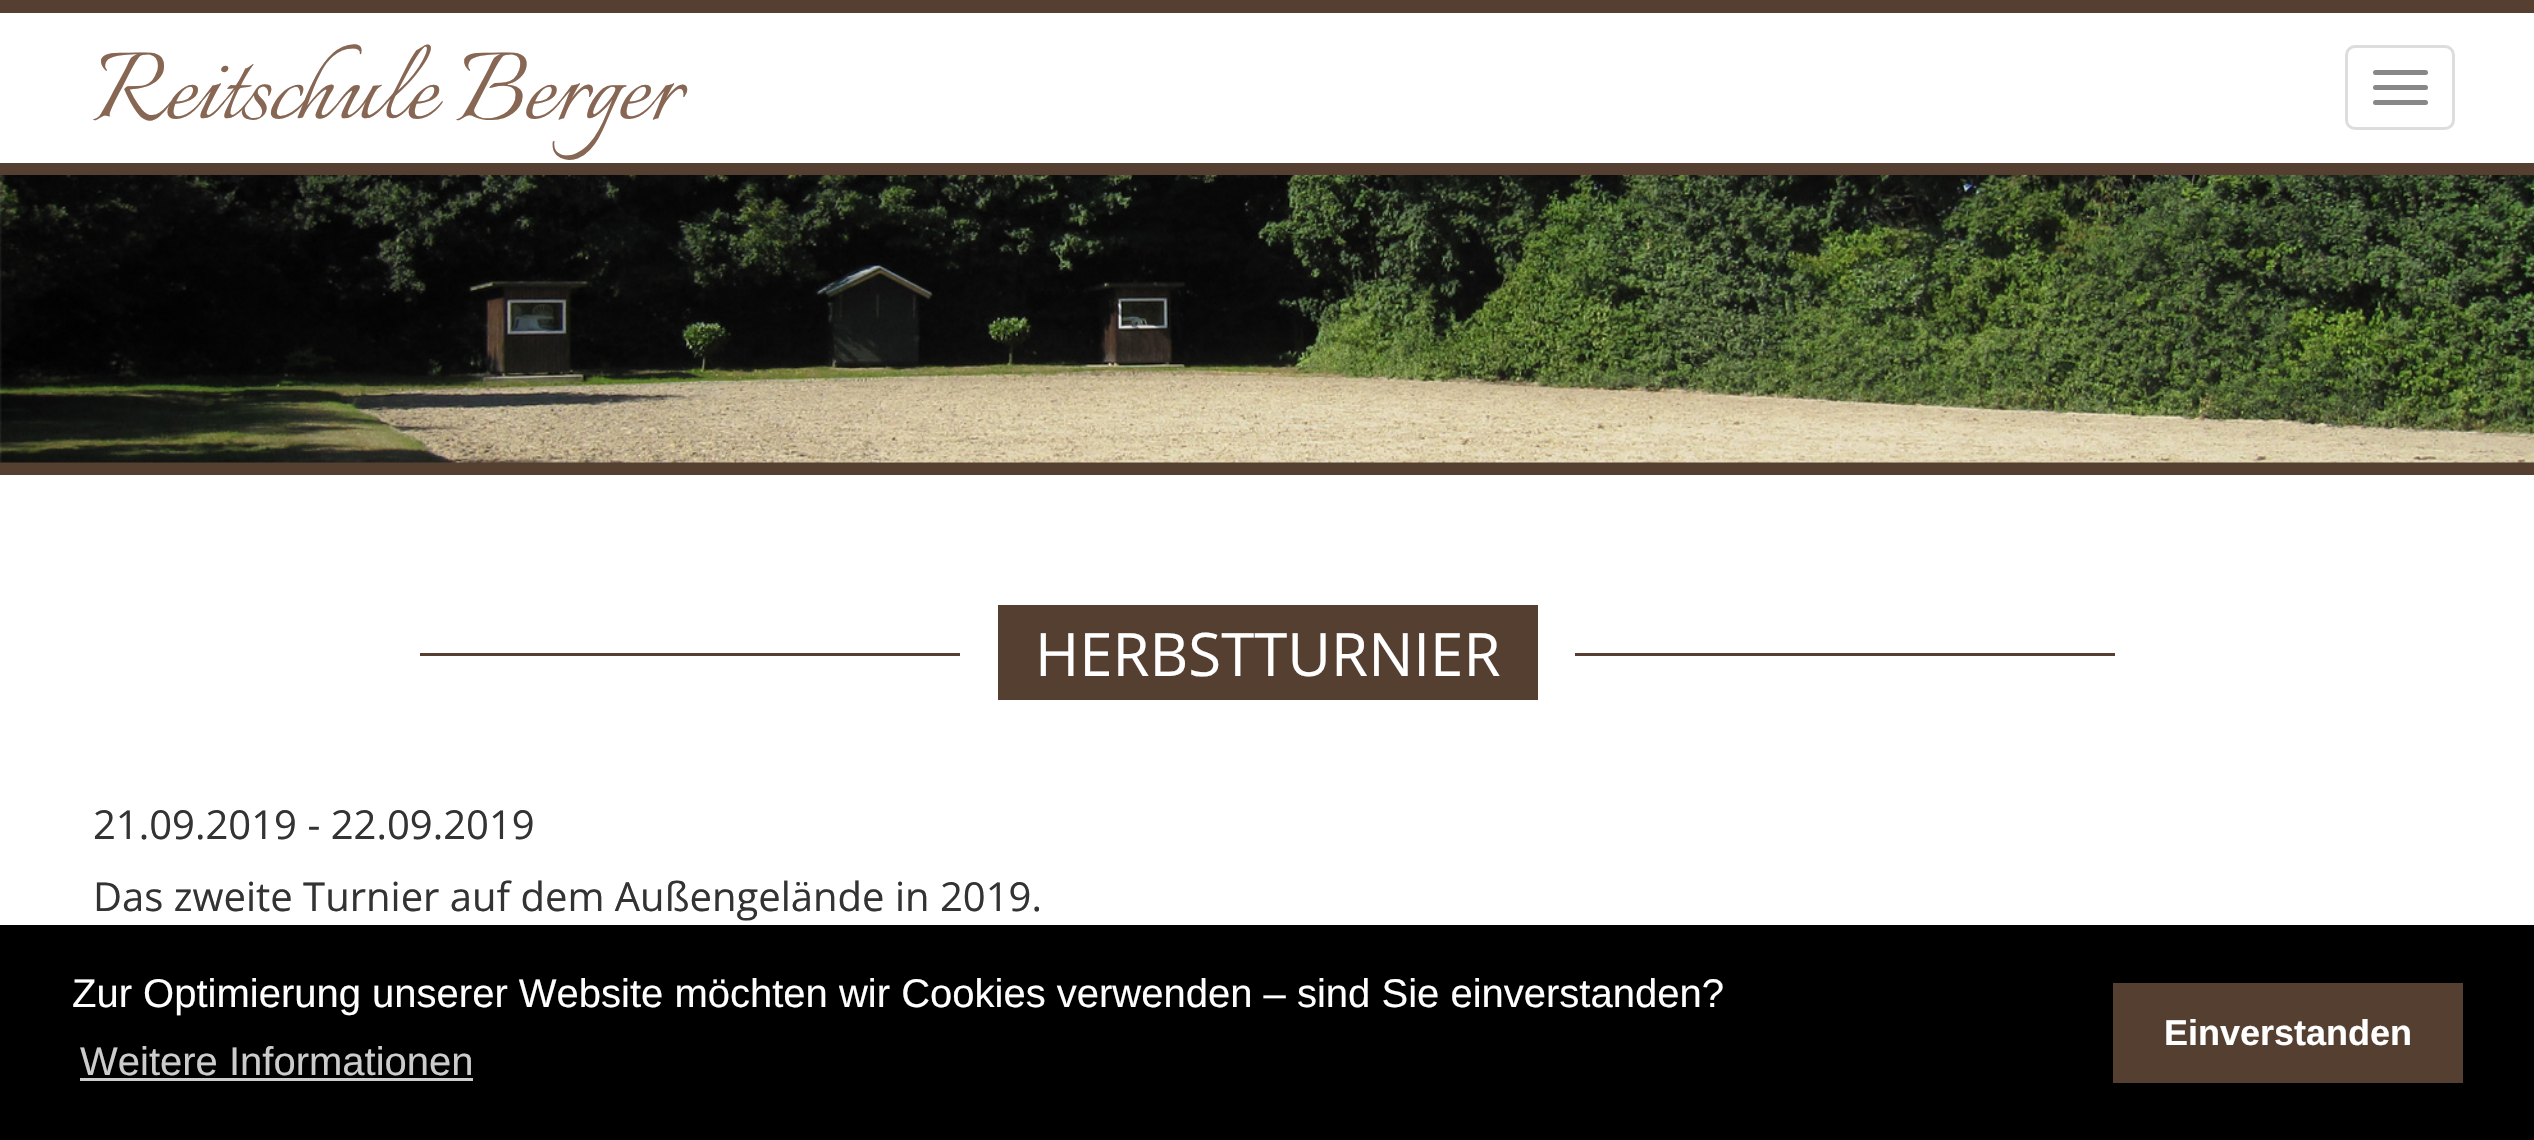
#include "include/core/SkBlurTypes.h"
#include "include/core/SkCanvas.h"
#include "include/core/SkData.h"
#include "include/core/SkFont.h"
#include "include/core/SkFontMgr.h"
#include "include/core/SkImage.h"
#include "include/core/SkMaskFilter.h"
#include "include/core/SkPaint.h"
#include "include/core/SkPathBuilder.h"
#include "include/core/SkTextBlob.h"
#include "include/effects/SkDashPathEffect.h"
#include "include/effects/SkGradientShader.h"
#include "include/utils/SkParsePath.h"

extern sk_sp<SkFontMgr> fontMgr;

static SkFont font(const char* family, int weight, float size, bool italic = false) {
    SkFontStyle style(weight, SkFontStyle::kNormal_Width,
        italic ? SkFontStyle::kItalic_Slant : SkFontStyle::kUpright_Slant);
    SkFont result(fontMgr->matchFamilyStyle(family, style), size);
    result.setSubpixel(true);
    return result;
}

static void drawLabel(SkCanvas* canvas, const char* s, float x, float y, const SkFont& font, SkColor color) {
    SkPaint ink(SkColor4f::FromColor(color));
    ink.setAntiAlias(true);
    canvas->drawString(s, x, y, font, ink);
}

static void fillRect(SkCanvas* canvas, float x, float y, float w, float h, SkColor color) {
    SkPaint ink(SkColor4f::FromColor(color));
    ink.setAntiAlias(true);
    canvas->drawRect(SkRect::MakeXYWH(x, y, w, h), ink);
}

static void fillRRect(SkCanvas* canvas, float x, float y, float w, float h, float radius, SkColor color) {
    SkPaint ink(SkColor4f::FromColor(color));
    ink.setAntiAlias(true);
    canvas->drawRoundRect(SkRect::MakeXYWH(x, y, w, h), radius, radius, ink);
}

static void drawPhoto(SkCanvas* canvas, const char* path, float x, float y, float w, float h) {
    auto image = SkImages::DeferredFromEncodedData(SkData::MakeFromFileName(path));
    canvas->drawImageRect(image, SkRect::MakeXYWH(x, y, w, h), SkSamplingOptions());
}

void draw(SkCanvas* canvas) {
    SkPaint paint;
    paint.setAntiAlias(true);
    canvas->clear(0xFFFFFFFF);
    fillRect(canvas, 0, 0, 2534, 13, 0xFF553F31);
    SkFont font1 = font("Italianno", 400, 120);
    drawLabel(canvas, "Reitschule Berger", 93, 118, font1, 0xFF876754);
    paint.setStroke(true);
    paint.setStrokeWidth(3);
    paint.setColor(0xFFDDDDDD);
    canvas->drawRoundRect(SkRect::MakeXYWH(2346.5f, 46.5f, 107, 82), 8.5f, 8.5f, paint);
    fillRRect(canvas, 2373, 70, 55, 5, 2.5f, 0xFF888888);
    fillRRect(canvas, 2373, 85, 55, 5, 2.5f, 0xFF888888);
    fillRRect(canvas, 2373, 100, 55, 5, 2.5f, 0xFF888888);
    fillRect(canvas, 0, 163, 2534, 312, 0xFF553F31);
    drawPhoto(canvas, "assets/img1.png", 0, 175, 2534, 288);
    fillRect(canvas, 998, 605, 540, 95, 0xFF553F31);
    fillRect(canvas, 420, 653, 540, 3, 0xFF553F31);
    SkFont font2 = font("Open Sans", 400, 60);
    drawLabel(canvas, "HERBSTTURNIER", 1035, 676, font2, 0xFFFFFFFF);
    fillRect(canvas, 1575, 653, 540, 3, 0xFF553F31);
    SkFont font3 = font("Open Sans", 400, 40);
    drawLabel(canvas, "21.09.2019 - 22.09.2019", 93, 839, font3, 0xFF333333);
    drawLabel(canvas, "Das zweite Turnier auf dem Außengelände in 2019.", 93, 911, font3, 0xFF333333);
    fillRect(canvas, 0, 925, 2534, 215, 0xFF000000);
    SkFont font4 = font("Liberation Sans", 400, 40);
    drawLabel(canvas, "Zur Optimierung unserer Website möchten wir Cookies verwenden – sind Sie einverstanden?", 72, 1007, font4, 0xFFFFFFFF);
    drawLabel(canvas, "Weitere Informationen", 80, 1075, font4, 0xFFCCCCCC);
    fillRect(canvas, 80, 1078, 393, 3, 0xFFCCCCCC);
    fillRect(canvas, 2113, 983, 350, 100, 0xFF553F31);
    SkFont font5 = font("Liberation Sans", 700, 36);
    drawLabel(canvas, "Einverstanden", 2164, 1045, font5, 0xFFFFFFFF);
}
